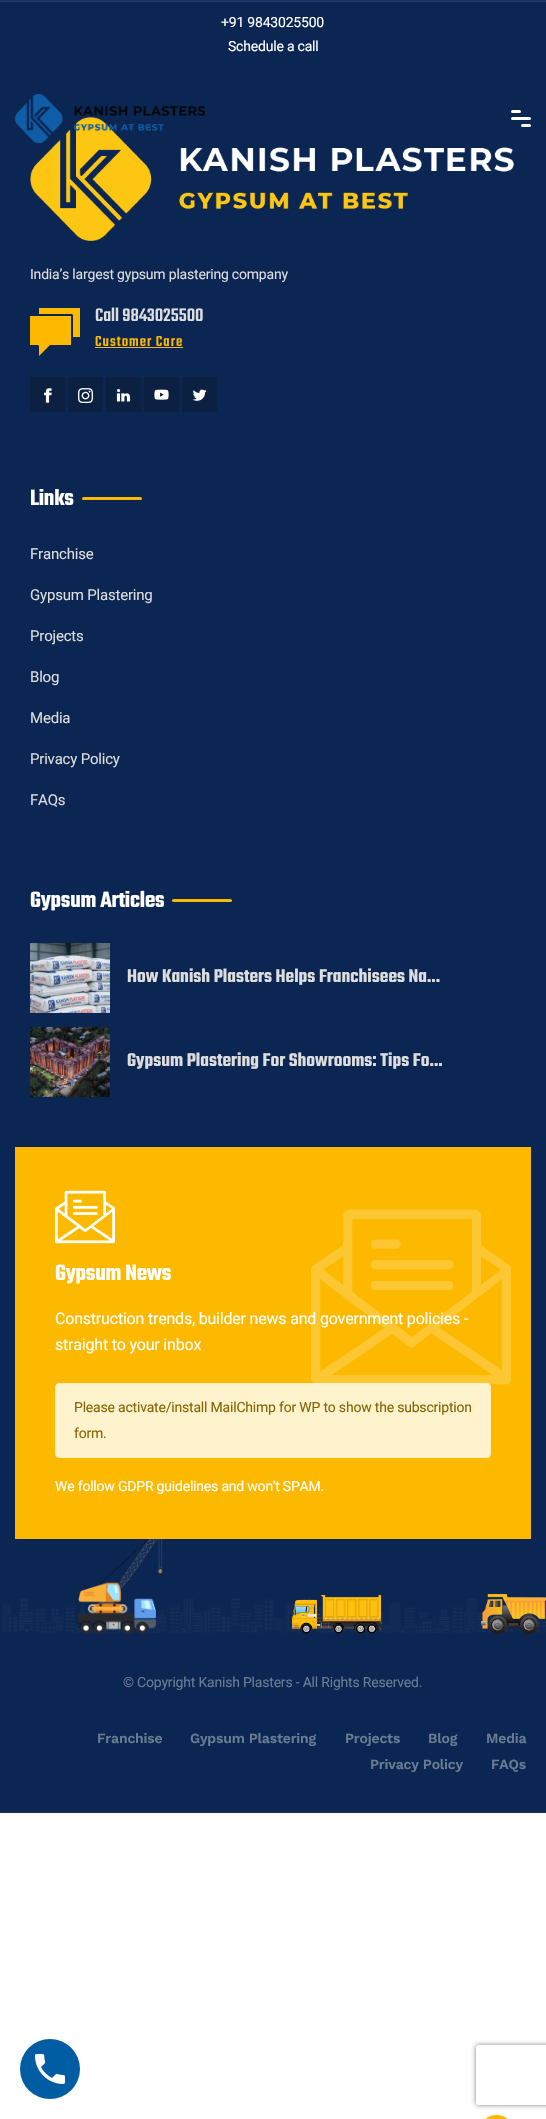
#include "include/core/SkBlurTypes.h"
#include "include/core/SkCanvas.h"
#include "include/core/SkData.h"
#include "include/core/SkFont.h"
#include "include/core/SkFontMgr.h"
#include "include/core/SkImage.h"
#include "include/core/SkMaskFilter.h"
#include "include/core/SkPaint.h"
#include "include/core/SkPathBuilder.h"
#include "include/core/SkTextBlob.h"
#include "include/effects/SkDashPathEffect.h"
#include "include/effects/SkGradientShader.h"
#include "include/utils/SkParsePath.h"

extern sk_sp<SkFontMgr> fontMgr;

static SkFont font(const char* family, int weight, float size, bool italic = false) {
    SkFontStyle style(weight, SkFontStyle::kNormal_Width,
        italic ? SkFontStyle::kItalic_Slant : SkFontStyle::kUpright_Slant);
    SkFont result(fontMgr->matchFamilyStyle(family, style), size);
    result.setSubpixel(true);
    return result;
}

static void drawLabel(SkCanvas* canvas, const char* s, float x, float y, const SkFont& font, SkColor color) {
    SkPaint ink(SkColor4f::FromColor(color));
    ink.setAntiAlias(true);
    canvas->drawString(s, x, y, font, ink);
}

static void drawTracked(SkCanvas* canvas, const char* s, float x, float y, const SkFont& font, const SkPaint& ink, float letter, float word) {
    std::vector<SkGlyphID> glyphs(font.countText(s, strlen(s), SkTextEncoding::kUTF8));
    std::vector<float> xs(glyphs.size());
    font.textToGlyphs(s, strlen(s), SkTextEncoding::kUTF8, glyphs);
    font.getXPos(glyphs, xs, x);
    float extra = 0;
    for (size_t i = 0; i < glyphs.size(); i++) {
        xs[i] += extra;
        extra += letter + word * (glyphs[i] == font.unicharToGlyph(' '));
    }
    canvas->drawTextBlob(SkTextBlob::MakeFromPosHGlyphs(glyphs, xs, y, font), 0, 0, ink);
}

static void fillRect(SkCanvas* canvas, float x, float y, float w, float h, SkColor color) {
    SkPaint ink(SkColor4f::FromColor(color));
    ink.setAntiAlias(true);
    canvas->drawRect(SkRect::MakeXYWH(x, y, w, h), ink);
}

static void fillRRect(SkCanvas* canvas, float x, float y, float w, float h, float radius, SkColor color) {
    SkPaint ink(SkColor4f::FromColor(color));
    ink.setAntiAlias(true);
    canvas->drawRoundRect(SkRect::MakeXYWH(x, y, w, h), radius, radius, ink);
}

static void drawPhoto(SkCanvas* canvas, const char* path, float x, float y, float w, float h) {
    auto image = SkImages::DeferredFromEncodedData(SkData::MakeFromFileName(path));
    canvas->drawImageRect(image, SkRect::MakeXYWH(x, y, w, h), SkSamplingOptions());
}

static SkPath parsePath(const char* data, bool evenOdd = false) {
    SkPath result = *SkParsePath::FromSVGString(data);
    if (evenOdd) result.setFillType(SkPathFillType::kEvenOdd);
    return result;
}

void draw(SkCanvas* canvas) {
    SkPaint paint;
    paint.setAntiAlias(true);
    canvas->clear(0xFFFFFFFF);
    fillRect(canvas, 0, 2, 546, 1810, 0xFF0B2653);
    SkFont font1 = font("Roboto", 400, 14);
    paint.setColor(0xFFFFFFFF);
    drawTracked(canvas, "+91 9843025500", 221, 27, font1, paint, -0.2f, 0);
    drawTracked(canvas, "Schedule a call", 228, 51, font1, paint, -0.2f, 0);
    drawPhoto(canvas, "assets/img2.png", 30, 117, 484, 124);
    drawPhoto(canvas, "assets/img1.png", 15, 94, 190, 49);
    fillRRect(canvas, 511, 110, 10, 3, 1.5f, 0xFFFFFFFF);
    fillRRect(canvas, 511, 117, 20, 3, 1.5f, 0xFFFFFFFF);
    fillRRect(canvas, 521, 124, 10, 3, 1.5f, 0xFFFFFFFF);
    fillRect(canvas, 0, 0, 546, 1, 0xFF17315C);
    fillRect(canvas, 0, 1812, 546, 1, 0xFF17315C);
    fillRect(canvas, 0, 1, 546, 1, 0xFF233C64);
    paint.setColor(0xFFDDDDDD);
    drawTracked(canvas, "India’s largest gypsum plastering company", 30, 279, font1, paint, -0.2f, 0);
    paint.setColor(0xFFFDB900);
    canvas->drawPath(parsePath("M80 337V308H39V314H72L73 315V337Z"), paint);
    canvas->drawPath(parsePath("M50 345H71V316H30V345H38L39 346V356Z"), paint);
    SkFont font2 = font("Teko", 500, 20);
    drawLabel(canvas, "Call 9843025500", 95, 321, font2, 0xFFDDDDDD);
    SkFont font3 = font("Teko", 500, 16);
    drawTracked(canvas, "Customer Care", 95, 346, font3, paint, 1, 0);
    fillRect(canvas, 95, 347, 88, 1, 0xFFFDB900);
    fillRect(canvas, 30, 377, 35, 35, 0xFF0C2042);
    drawPhoto(canvas, "assets/img3.png", 44, 388, 8, 15);
    fillRect(canvas, 68, 377, 35, 35, 0xFF0C2042);
    drawPhoto(canvas, "assets/img4.png", 78, 388, 15, 15);
    fillRect(canvas, 106, 377, 35, 35, 0xFF0C2042);
    drawPhoto(canvas, "assets/img5.png", 116, 389, 15, 13);
    fillRect(canvas, 144, 377, 35, 35, 0xFF0C2042);
    drawPhoto(canvas, "assets/img6.png", 154, 389, 15, 11);
    fillRect(canvas, 182, 377, 35, 35, 0xFF0C2042);
    drawPhoto(canvas, "assets/img7.png", 192, 389, 15, 12);
    SkFont font4 = font("Teko", 600, 24);
    paint.setColor(0xFFFFFFFF);
    drawTracked(canvas, "Links", 30, 505, font4, paint, -0.2f, 0);
    fillRRect(canvas, 82, 497, 60, 3, 1.5f, 0xFFFDB900);
    SkFont font5 = font("Roboto", 400, 15);
    paint.setColor(0xFFDDDDDD);
    drawTracked(canvas, "Franchise", 30, 559, font5, paint, -0.2f, 0);
    drawTracked(canvas, "Gypsum Plastering", 30, 600, font5, paint, -0.2f, 0);
    drawTracked(canvas, "Projects", 30, 641, font5, paint, -0.2f, 0);
    drawTracked(canvas, "Blog", 30, 682, font5, paint, -0.2f, 0);
    drawTracked(canvas, "Media", 30, 723, font5, paint, -0.2f, 0);
    drawTracked(canvas, "Privacy Policy", 30, 764, font5, paint, -0.2f, 0);
    drawTracked(canvas, "FAQs", 30, 805, font5, paint, -0.2f, 0);
    paint.setColor(0xFFFFFFFF);
    drawTracked(canvas, "Gypsum Articles", 30, 907, font4, paint, -0.2f, 0);
    fillRRect(canvas, 172, 899, 60, 3, 1.5f, 0xFFFDB900);
    drawPhoto(canvas, "assets/img8.png", 30, 943, 80, 70);
    SkFont font6 = font("Teko", 600, 20);
    drawLabel(canvas, "How Kanish Plasters Helps Franchisees Na...", 127, 982, font6, 0xFFDDDDDD);
    drawPhoto(canvas, "assets/img9.png", 30, 1027, 80, 70);
    drawLabel(canvas, "Gypsum Plastering For Showrooms: Tips Fo...", 127, 1066, font6, 0xFFDDDDDD);
    fillRect(canvas, 15, 1147, 516, 392, 0xFFFCB900);
    SkFont font7 = font("Roboto", 400, 16);
    drawTracked(canvas, "Construction trends, builder news and government policies -", 55, 1324, font7, paint, -0.2f, 0);
    paint.setColor(0xFFFFF3CD);
    canvas->drawRoundRect(SkRect::MakeXYWH(55.5f, 1383.5f, 435, 74), 3.5f, 3.5f, paint);
    paint.setStroke(true);
    paint.setStrokeWidth(1);
    paint.setColor(0xFFFFEEBA);
    canvas->drawRoundRect(SkRect::MakeXYWH(55.5f, 1383.5f, 435, 74), 3.5f, 3.5f, paint);
    drawPhoto(canvas, "assets/img10.png", 311, 1209, 200, 176);
    drawPhoto(canvas, "assets/img11.png", 55, 1190, 60, 54);
    paint.setStroke(false);
    paint.setColor(0xFFFFFFFF);
    drawTracked(canvas, "Gypsum News", 55, 1280, font4, paint, -0.2f, 0);
    drawTracked(canvas, "straight to your inbox", 55, 1350, font7, paint, -0.2f, 0);
    paint.setColor(0xFF856404);
    drawTracked(canvas, "Please activate/install MailChimp for WP to show the subscription", 74, 1412, font1, paint, -0.2f, 0);
    drawTracked(canvas, "form.", 74, 1438, font1, paint, -0.2f, 0);
    paint.setColor(0xFFFFFFFF);
    drawTracked(canvas, "We follow GDPR guidelines and won't SPAM.", 55, 1491, font1, paint, -0.2f, 0);
    drawPhoto(canvas, "assets/img15.png", 1, 1598, 545, 35);
    drawPhoto(canvas, "assets/img12.png", 78, 1539, 85, 95);
    drawPhoto(canvas, "assets/img13.png", 292, 1595, 90, 39);
    drawPhoto(canvas, "assets/img14.png", 481, 1594, 65, 40);
    paint.setColor(0xFF6A7C92);
    drawTracked(canvas, "© Copyright Kanish Plasters - All Rights Reserved.", 123, 1687, font1, paint, -0.2f, 0);
    SkFont font8 = font("Work Sans", 600, 14);
    drawTracked(canvas, "Franchise", 97, 1743, font8, paint, -0.2f, 0);
    drawTracked(canvas, "Gypsum Plastering", 190, 1743, font8, paint, -0.2f, 0);
    drawTracked(canvas, "Projects", 345, 1743, font8, paint, -0.2f, 0);
    drawTracked(canvas, "Blog", 428, 1743, font8, paint, -0.2f, 0);
    drawTracked(canvas, "Media", 486, 1743, font8, paint, -0.2f, 0);
    drawTracked(canvas, "Privacy Policy", 370, 1769, font8, paint, -0.2f, 0);
    drawTracked(canvas, "FAQs", 491, 1769, font8, paint, -0.2f, 0);
    paint.setColor(0xFF005DA3);
    canvas->drawCircle(50, 2069, 30, paint);
    drawPhoto(canvas, "assets/img16.png", 35, 2054, 30, 30);
    canvas->save();
    canvas->clipPath(parsePath("M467 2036H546V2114H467ZM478 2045H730C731 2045 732 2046 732 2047V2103C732 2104 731 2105 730 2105H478C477 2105 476 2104 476 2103V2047C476 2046 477 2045 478 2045Z", true), true);
    paint.setColor(0xFF808080);
    paint.setMaskFilter(SkMaskFilter::MakeBlur(kNormal_SkBlurStyle, 2.5f));
    canvas->drawRoundRect(SkRect::MakeXYWH(476, 2045, 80, 60), 2, 2, paint);
    paint.setMaskFilter(nullptr);
    canvas->restore();
    paint.setColor(0xFFFDB900);
    canvas->drawPath(parsePath("M496.5 2115C506 2115 514 2123 514 2132.5V2119H479V2132.5C479 2123 487 2115 496.5 2115Z"), paint);
}
